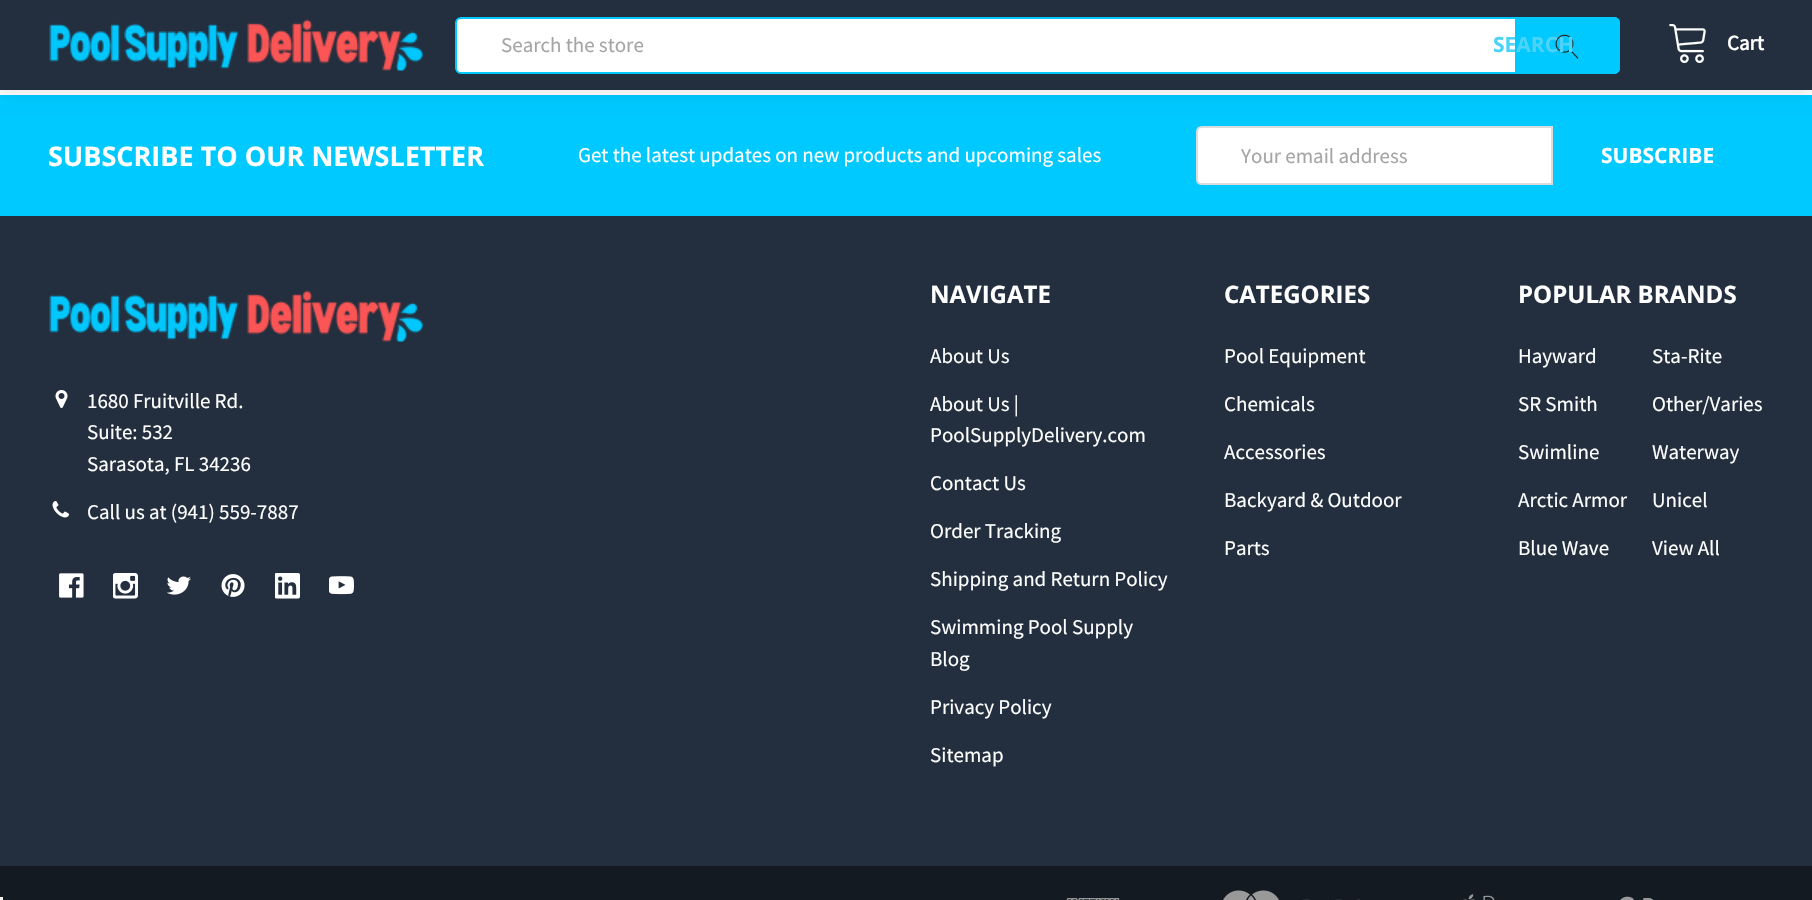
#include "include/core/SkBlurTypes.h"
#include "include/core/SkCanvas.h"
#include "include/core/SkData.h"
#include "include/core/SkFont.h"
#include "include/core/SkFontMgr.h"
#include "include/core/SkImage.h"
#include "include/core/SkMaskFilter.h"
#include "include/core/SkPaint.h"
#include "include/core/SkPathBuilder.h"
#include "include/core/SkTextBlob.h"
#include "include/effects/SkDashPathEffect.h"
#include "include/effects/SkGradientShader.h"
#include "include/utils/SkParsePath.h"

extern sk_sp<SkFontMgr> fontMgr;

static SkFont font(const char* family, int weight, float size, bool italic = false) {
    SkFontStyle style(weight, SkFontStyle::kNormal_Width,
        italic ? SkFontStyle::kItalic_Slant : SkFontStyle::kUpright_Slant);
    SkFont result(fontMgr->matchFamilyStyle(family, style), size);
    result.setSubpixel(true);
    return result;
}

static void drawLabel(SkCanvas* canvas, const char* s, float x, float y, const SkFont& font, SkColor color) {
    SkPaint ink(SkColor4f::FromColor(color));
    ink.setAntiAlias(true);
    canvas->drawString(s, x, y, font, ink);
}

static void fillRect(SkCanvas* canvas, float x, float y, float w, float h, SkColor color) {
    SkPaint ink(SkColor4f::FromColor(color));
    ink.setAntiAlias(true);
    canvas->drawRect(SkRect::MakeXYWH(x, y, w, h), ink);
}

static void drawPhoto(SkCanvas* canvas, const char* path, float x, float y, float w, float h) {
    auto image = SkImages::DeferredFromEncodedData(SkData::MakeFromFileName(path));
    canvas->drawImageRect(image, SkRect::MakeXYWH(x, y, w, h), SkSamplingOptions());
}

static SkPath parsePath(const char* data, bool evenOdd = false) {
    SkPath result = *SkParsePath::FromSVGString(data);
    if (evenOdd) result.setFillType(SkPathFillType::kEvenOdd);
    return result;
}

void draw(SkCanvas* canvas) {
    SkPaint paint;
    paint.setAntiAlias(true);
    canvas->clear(0xFFFFFFFF);
    fillRect(canvas, 0, 95, 1812, 121, 0xFF00C9FF);
    paint.setColor(0x1A000000);
    paint.setMaskFilter(SkMaskFilter::MakeBlur(kNormal_SkBlurStyle, 7.5f));
    canvas->drawRect(SkRect::MakeXYWH(0, 3, 1812, 90), paint);
    paint.setMaskFilter(nullptr);
    fillRect(canvas, 0, 0, 1812, 90, 0xFF232F3E);
    drawPhoto(canvas, "assets/img1.png", 49, 19, 374, 52);
    paint.setColor(0xFFFFFFFF);
    canvas->drawRoundRect(SkRect::MakeXYWH(456, 18, 1163, 55), 5, 5, paint);
    paint.setStroke(true);
    paint.setStrokeWidth(2);
    paint.setColor(0xFF00C9FF);
    canvas->drawRoundRect(SkRect::MakeXYWH(456, 18, 1163, 55), 5, 5, paint);
    paint.setStroke(false);
    canvas->drawPath(parsePath("M1515 17H1614C1617.5 17 1620 19.5 1620 23V68C1620 71.5 1617.5 74 1614 74H1515Z"), paint);
    drawPhoto(canvas, "assets/img2.png", 1555, 34, 24, 25);
    SkFont font1 = font("Source Sans Pro", 400, 21);
    drawLabel(canvas, "Search the store", 501, 52, font1, 0xFFA5A5A5);
    SkFont font2 = font("Open Sans", 700, 21);
    drawLabel(canvas, "SEARCH", 1493, 52, font2, 0xFF4CD3F7);
    drawPhoto(canvas, "assets/img3.png", 1669, 24, 37, 39);
    SkFont font3 = font("Source Sans Pro", 700, 21);
    drawLabel(canvas, "Cart", 1727, 50, font3, 0xFFFFFFFF);
    fillRect(canvas, 0, 216, 1812, 650, 0xFF232F3E);
    SkFont font4 = font("Open Sans", 700, 27);
    drawLabel(canvas, "SUBSCRIBE TO OUR NEWSLETTER", 48, 166, font4, 0xFFFFFFFF);
    drawLabel(canvas, "Get the latest updates on new products and upcoming sales", 578, 162, font1, 0xFFFFFFFF);
    paint.setColor(0xFFFFFFFF);
    canvas->drawPath(parsePath("M1202 127H1552V184H1202C1199 184 1197 182 1197 179V132C1197 129 1199 127 1202 127Z"), paint);
    paint.setStroke(true);
    paint.setColor(0xFFDCDCDC);
    canvas->drawPath(parsePath("M1202 127H1552V184H1202C1199 184 1197 182 1197 179V132C1197 129 1199 127 1202 127Z"), paint);
    drawLabel(canvas, "Your email address", 1241, 163, font1, 0xFFA5A5A5);
    drawLabel(canvas, "SUBSCRIBE", 1601, 163, font2, 0xFFFFFFFF);
    drawPhoto(canvas, "assets/img1.png", 49, 290, 374, 52);
    drawPhoto(canvas, "assets/img4.png", 55, 390, 13, 18);
    drawLabel(canvas, "1680 Fruitville Rd.", 87, 408, font1, 0xFFFFFFFF);
    drawLabel(canvas, "Suite: 532", 87, 439, font1, 0xFFFFFFFF);
    drawLabel(canvas, "Sarasota, FL 34236", 87, 471, font1, 0xFFFFFFFF);
    drawPhoto(canvas, "assets/img5.png", 52, 501, 17, 17);
    drawLabel(canvas, "Call us at (941) 559-7887", 87, 519, font1, 0xFFFFFFFF);
    drawPhoto(canvas, "assets/img6.png", 59, 573, 25, 25);
    drawPhoto(canvas, "assets/img7.png", 113, 573, 25, 26);
    drawPhoto(canvas, "assets/img8.png", 167, 576, 24, 19);
    drawPhoto(canvas, "assets/img9.png", 221, 574, 24, 23);
    drawPhoto(canvas, "assets/img10.png", 275, 573, 25, 26);
    drawPhoto(canvas, "assets/img11.png", 329, 576, 25, 19);
    SkFont font5 = font("Open Sans", 700, 24);
    drawLabel(canvas, "NAVIGATE", 930, 303, font5, 0xFFFFFFFF);
    drawLabel(canvas, "About Us", 930, 363, font1, 0xFFFFFFFF);
    drawLabel(canvas, "About Us |", 930, 411, font1, 0xFFFFFFFF);
    drawLabel(canvas, "PoolSupplyDelivery.com", 930, 442, font1, 0xFFFFFFFF);
    drawLabel(canvas, "Contact Us", 930, 490, font1, 0xFFFFFFFF);
    drawLabel(canvas, "Order Tracking", 930, 538, font1, 0xFFFFFFFF);
    drawLabel(canvas, "Shipping and Return Policy", 930, 586, font1, 0xFFFFFFFF);
    drawLabel(canvas, "Swimming Pool Supply", 930, 634, font1, 0xFFFFFFFF);
    drawLabel(canvas, "Blog", 930, 666, font1, 0xFFFFFFFF);
    drawLabel(canvas, "Privacy Policy", 930, 714, font1, 0xFFFFFFFF);
    drawLabel(canvas, "Sitemap", 930, 762, font1, 0xFFFFFFFF);
    drawLabel(canvas, "CATEGORIES", 1224, 303, font5, 0xFFFFFFFF);
    drawLabel(canvas, "Pool Equipment", 1224, 363, font1, 0xFFFFFFFF);
    drawLabel(canvas, "Chemicals", 1224, 411, font1, 0xFFFFFFFF);
    drawLabel(canvas, "Accessories", 1224, 459, font1, 0xFFFFFFFF);
    drawLabel(canvas, "Backyard & Outdoor", 1224, 507, font1, 0xFFFFFFFF);
    drawLabel(canvas, "Parts", 1224, 555, font1, 0xFFFFFFFF);
    drawLabel(canvas, "POPULAR BRANDS", 1518, 303, font5, 0xFFFFFFFF);
    drawLabel(canvas, "Hayward", 1518, 363, font1, 0xFFFFFFFF);
    drawLabel(canvas, "Sta-Rite", 1652, 363, font1, 0xFFFFFFFF);
    drawLabel(canvas, "SR Smith", 1518, 411, font1, 0xFFFFFFFF);
    drawLabel(canvas, "Other/Varies", 1652, 411, font1, 0xFFFFFFFF);
    drawLabel(canvas, "Swimline", 1518, 459, font1, 0xFFFFFFFF);
    drawLabel(canvas, "Waterway", 1652, 459, font1, 0xFFFFFFFF);
    drawLabel(canvas, "Arctic Armor", 1518, 507, font1, 0xFFFFFFFF);
    drawLabel(canvas, "Unicel", 1652, 507, font1, 0xFFFFFFFF);
    drawLabel(canvas, "Blue Wave", 1518, 555, font1, 0xFFFFFFFF);
    drawLabel(canvas, "View All", 1652, 555, font1, 0xFFFFFFFF);
    fillRect(canvas, 0, 866, 1812, 34, 0xFF131A22);
    drawPhoto(canvas, "assets/img12.png", 1066, 898, 54, 2);
    drawPhoto(canvas, "assets/img13.png", 1223, 890, 56, 10);
    drawPhoto(canvas, "assets/img14.png", 1303, 899, 57, 1);
    drawPhoto(canvas, "assets/img15.png", 1463, 894, 32, 6);
    drawPhoto(canvas, "assets/img16.png", 1620, 896, 33, 4);
    fillRect(canvas, 0, 897, 3, 3, 0xFFF5F5F5);
}
